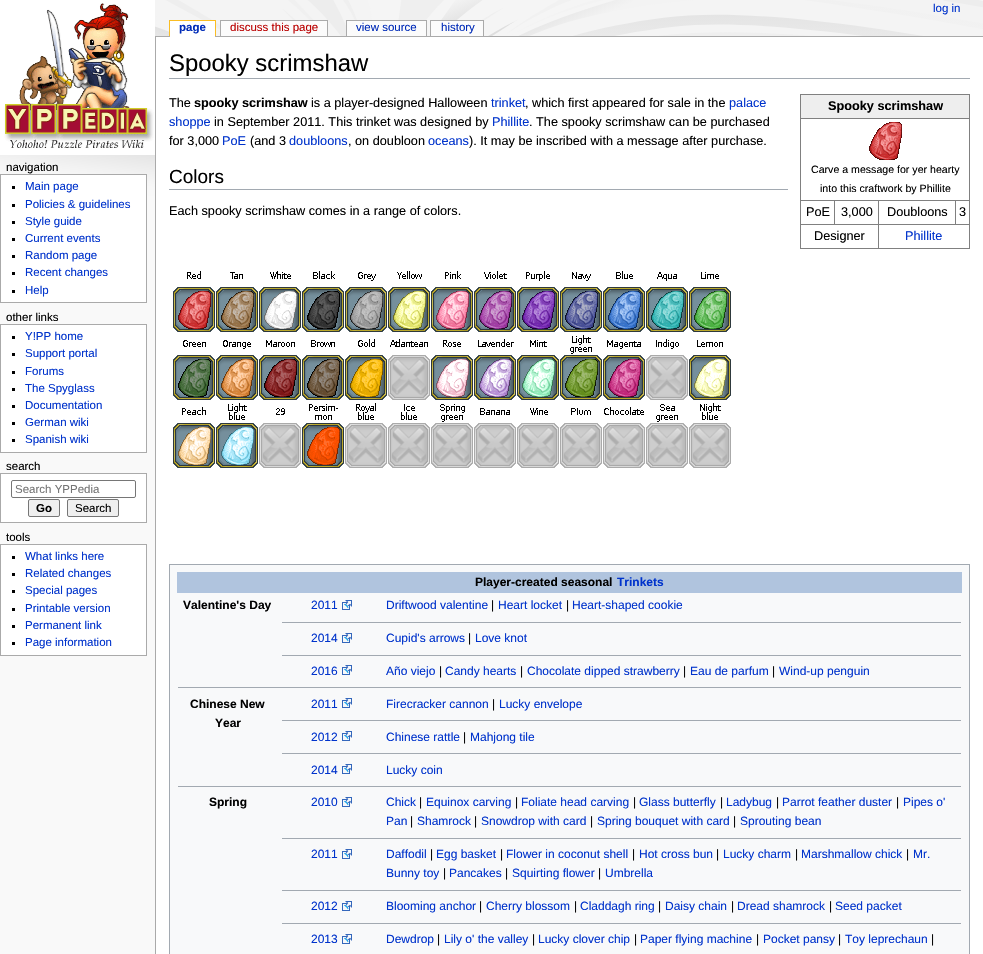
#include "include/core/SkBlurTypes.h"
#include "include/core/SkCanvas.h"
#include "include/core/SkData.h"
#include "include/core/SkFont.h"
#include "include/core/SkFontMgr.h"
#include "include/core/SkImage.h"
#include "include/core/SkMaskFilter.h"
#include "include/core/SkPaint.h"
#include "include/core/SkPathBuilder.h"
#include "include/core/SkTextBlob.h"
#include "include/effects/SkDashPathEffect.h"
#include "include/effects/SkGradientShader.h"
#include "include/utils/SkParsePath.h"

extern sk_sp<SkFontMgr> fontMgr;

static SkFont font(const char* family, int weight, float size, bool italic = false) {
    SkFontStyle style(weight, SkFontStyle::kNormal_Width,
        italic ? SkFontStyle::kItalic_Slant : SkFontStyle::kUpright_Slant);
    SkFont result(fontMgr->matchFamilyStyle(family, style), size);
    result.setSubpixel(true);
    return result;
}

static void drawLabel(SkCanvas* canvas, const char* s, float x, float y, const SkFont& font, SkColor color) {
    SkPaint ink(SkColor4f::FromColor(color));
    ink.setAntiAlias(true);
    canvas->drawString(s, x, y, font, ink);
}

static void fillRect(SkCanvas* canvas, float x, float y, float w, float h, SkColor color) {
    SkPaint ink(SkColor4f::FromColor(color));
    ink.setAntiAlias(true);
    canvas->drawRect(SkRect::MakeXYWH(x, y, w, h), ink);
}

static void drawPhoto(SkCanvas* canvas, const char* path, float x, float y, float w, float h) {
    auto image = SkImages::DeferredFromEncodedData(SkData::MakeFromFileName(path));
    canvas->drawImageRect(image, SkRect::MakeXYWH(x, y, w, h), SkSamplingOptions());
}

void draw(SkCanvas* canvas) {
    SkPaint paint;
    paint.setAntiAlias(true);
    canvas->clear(0xFFF9F9F9);
    drawPhoto(canvas, "assets/img1.png", 0, 0, 983, 210);
    drawPhoto(canvas, "assets/img2.png", 0, 0, 155, 155);
    SkFont font1 = font("Liberation Sans", 400, 11.5f);
    drawLabel(canvas, "log in", 933, 12, font1, 0xFF0033CC);
    fillRect(canvas, 155, 36, 828, 1, 0xFFAAAAAA);
    fillRect(canvas, 170, 21, 45, 16, 0xFFFFFFFF);
    SkFont font2 = font("Liberation Sans", 700, 11.5f);
    drawLabel(canvas, "page", 179, 31, font2, 0xFF002BB8);
    fillRect(canvas, 169, 20, 47, 1, 0xFFFABD23);
    fillRect(canvas, 215, 20, 1, 16, 0xFFFABD23);
    fillRect(canvas, 169, 20, 1, 16, 0xFFFABD23);
    fillRect(canvas, 221, 21, 106, 15, 0xFFFBFBFB);
    drawLabel(canvas, "discuss this page", 230, 31, font1, 0xFFBA0000);
    fillRect(canvas, 220, 20, 108, 1, 0xFFAAAAAA);
    fillRect(canvas, 327, 20, 1, 16, 0xFFAAAAAA);
    fillRect(canvas, 220, 20, 1, 16, 0xFFAAAAAA);
    fillRect(canvas, 347, 21, 79, 15, 0xFFFBFBFB);
    drawLabel(canvas, "view source", 356, 31, font1, 0xFF002BB8);
    fillRect(canvas, 346, 20, 81, 1, 0xFFAAAAAA);
    fillRect(canvas, 426, 20, 1, 16, 0xFFAAAAAA);
    fillRect(canvas, 346, 20, 1, 16, 0xFFAAAAAA);
    fillRect(canvas, 431, 21, 52, 15, 0xFFFBFBFB);
    drawLabel(canvas, "history", 441, 31, font1, 0xFF002BB8);
    fillRect(canvas, 430, 20, 54, 1, 0xFFAAAAAA);
    fillRect(canvas, 483, 20, 1, 16, 0xFFAAAAAA);
    fillRect(canvas, 430, 20, 1, 16, 0xFFAAAAAA);
    drawLabel(canvas, "navigation", 6, 171, font1, 0xFF000000);
    paint.setColor(0xFFFFFFFF);
    canvas->drawRect(SkRect::MakeXYWH(0.5f, 174.5f, 146, 128), paint);
    paint.setStroke(true);
    paint.setStrokeWidth(1);
    paint.setColor(0xFFAAAAAA);
    canvas->drawRect(SkRect::MakeXYWH(0.5f, 174.5f, 146, 128), paint);
    fillRect(canvas, 12, 186, 3, 3, 0xFF000000);
    drawLabel(canvas, "Main page", 25, 190, font1, 0xFF0033CC);
    fillRect(canvas, 12, 204, 3, 3, 0xFF000000);
    drawLabel(canvas, "Policies & guidelines", 25, 208, font1, 0xFF0033CC);
    fillRect(canvas, 12, 221, 3, 3, 0xFF000000);
    drawLabel(canvas, "Style guide", 25, 225, font1, 0xFF0033CC);
    fillRect(canvas, 12, 238, 3, 3, 0xFF000000);
    drawLabel(canvas, "Current events", 25, 242, font1, 0xFF0033CC);
    fillRect(canvas, 12, 255, 3, 3, 0xFF000000);
    drawLabel(canvas, "Random page", 25, 259, font1, 0xFF0033CC);
    fillRect(canvas, 12, 272, 3, 3, 0xFF000000);
    drawLabel(canvas, "Recent changes", 25, 276, font1, 0xFF0033CC);
    fillRect(canvas, 12, 290, 3, 3, 0xFF000000);
    drawLabel(canvas, "Help", 25, 294, font1, 0xFF0033CC);
    drawLabel(canvas, "other links", 6, 321, font1, 0xFF000000);
    paint.setStroke(false);
    paint.setColor(0xFFFFFFFF);
    canvas->drawRect(SkRect::MakeXYWH(0.5f, 324.5f, 146, 128), paint);
    paint.setStroke(true);
    paint.setColor(0xFFAAAAAA);
    canvas->drawRect(SkRect::MakeXYWH(0.5f, 324.5f, 146, 128), paint);
    fillRect(canvas, 12, 336, 3, 3, 0xFF000000);
    drawLabel(canvas, "Y!PP home", 25, 340, font1, 0xFF0033CC);
    fillRect(canvas, 12, 353, 3, 3, 0xFF000000);
    drawLabel(canvas, "Support portal", 25, 357, font1, 0xFF0033CC);
    fillRect(canvas, 12, 371, 3, 3, 0xFF000000);
    drawLabel(canvas, "Forums", 25, 375, font1, 0xFF0033CC);
    fillRect(canvas, 12, 388, 3, 3, 0xFF000000);
    drawLabel(canvas, "The Spyglass", 25, 392, font1, 0xFF0033CC);
    fillRect(canvas, 12, 405, 3, 3, 0xFF000000);
    drawLabel(canvas, "Documentation", 25, 409, font1, 0xFF0033CC);
    fillRect(canvas, 12, 422, 3, 3, 0xFF000000);
    drawLabel(canvas, "German wiki", 25, 426, font1, 0xFF0033CC);
    fillRect(canvas, 12, 439, 3, 3, 0xFF000000);
    drawLabel(canvas, "Spanish wiki", 25, 443, font1, 0xFF0033CC);
    drawLabel(canvas, "search", 6, 470, font1, 0xFF000000);
    paint.setStroke(false);
    paint.setColor(0xFFFFFFFF);
    canvas->drawRect(SkRect::MakeXYWH(0.5f, 473.5f, 146, 49), paint);
    paint.setStroke(true);
    paint.setColor(0xFFAAAAAA);
    canvas->drawRect(SkRect::MakeXYWH(0.5f, 473.5f, 146, 49), paint);
    paint.setColor(0xFF767676);
    canvas->drawRoundRect(SkRect::MakeXYWH(11.5f, 480.5f, 124, 17), 1.5f, 1.5f, paint);
    drawLabel(canvas, "Search YPPedia", 15, 493, font1, 0xFF757575);
    paint.setStroke(false);
    paint.setColor(0xFFEFEFEF);
    canvas->drawRoundRect(SkRect::MakeXYWH(28.5f, 499.5f, 31, 17), 1.5f, 1.5f, paint);
    paint.setStroke(true);
    paint.setColor(0xFF767676);
    canvas->drawRoundRect(SkRect::MakeXYWH(28.5f, 499.5f, 31, 17), 1.5f, 1.5f, paint);
    drawLabel(canvas, "Go", 36, 512, font2, 0xFF000000);
    paint.setStroke(false);
    paint.setColor(0xFFEFEFEF);
    canvas->drawRoundRect(SkRect::MakeXYWH(67.5f, 499.5f, 51, 17), 1.5f, 1.5f, paint);
    paint.setStroke(true);
    paint.setColor(0xFF767676);
    canvas->drawRoundRect(SkRect::MakeXYWH(67.5f, 499.5f, 51, 17), 1.5f, 1.5f, paint);
    drawLabel(canvas, "Search", 75, 512, font1, 0xFF000000);
    drawLabel(canvas, "tools", 6, 541, font1, 0xFF000000);
    paint.setStroke(false);
    paint.setColor(0xFFFFFFFF);
    canvas->drawRect(SkRect::MakeXYWH(0.5f, 544.5f, 146, 111), paint);
    paint.setStroke(true);
    paint.setColor(0xFFAAAAAA);
    canvas->drawRect(SkRect::MakeXYWH(0.5f, 544.5f, 146, 111), paint);
    fillRect(canvas, 12, 556, 3, 3, 0xFF000000);
    drawLabel(canvas, "What links here", 25, 560, font1, 0xFF0033CC);
    fillRect(canvas, 12, 573, 3, 3, 0xFF000000);
    drawLabel(canvas, "Related changes", 25, 577, font1, 0xFF0033CC);
    fillRect(canvas, 12, 590, 3, 3, 0xFF000000);
    drawLabel(canvas, "Special pages", 25, 594, font1, 0xFF0033CC);
    fillRect(canvas, 12, 608, 3, 3, 0xFF000000);
    drawLabel(canvas, "Printable version", 25, 612, font1, 0xFF0033CC);
    fillRect(canvas, 12, 625, 3, 3, 0xFF000000);
    drawLabel(canvas, "Permanent link", 25, 629, font1, 0xFF0033CC);
    fillRect(canvas, 12, 642, 3, 3, 0xFF000000);
    drawLabel(canvas, "Page information", 25, 646, font1, 0xFF0033CC);
    fillRect(canvas, 156, 37, 827, 917, 0xFFFFFFFF);
    fillRect(canvas, 155, 36, 1, 918, 0xFFAAAAAA);
    fillRect(canvas, 169, 78, 801, 1, 0xFFA2A9B1);
    SkFont font3 = font("Liberation Sans", 400, 23.9f);
    drawLabel(canvas, "Spooky scrimshaw", 169, 71, font3, 0xFF000000);
    SkFont font4 = font("Liberation Sans", 400, 12.7f);
    drawLabel(canvas, "The", 169, 107, font4, 0xFF000000);
    SkFont font5 = font("Liberation Sans", 700, 12.7f);
    drawLabel(canvas, "spooky scrimshaw", 194, 107, font5, 0xFF000000);
    drawLabel(canvas, "is a player-designed Halloween", 311, 107, font4, 0xFF000000);
    drawLabel(canvas, "trinket", 491, 107, font4, 0xFF0033CC);
    drawLabel(canvas, ", which first appeared for sale in the", 525, 107, font4, 0xFF000000);
    drawLabel(canvas, "palace", 729, 107, font4, 0xFF0033CC);
    drawLabel(canvas, "shoppe", 169, 126, font4, 0xFF0033CC);
    drawLabel(canvas, "in September 2011. This trinket was designed by", 214, 126, font4, 0xFF000000);
    drawLabel(canvas, "Phillite", 492, 126, font4, 0xFF0033CC);
    drawLabel(canvas, ". The spooky scrimshaw can be purchased", 529, 126, font4, 0xFF000000);
    drawLabel(canvas, "for 3,000", 169, 145, font4, 0xFF000000);
    drawLabel(canvas, "PoE", 222, 145, font4, 0xFF0033CC);
    drawLabel(canvas, "(and 3", 250, 145, font4, 0xFF000000);
    drawLabel(canvas, "doubloons", 289, 145, font4, 0xFF0033CC);
    drawLabel(canvas, ", on doubloon", 348, 145, font4, 0xFF000000);
    drawLabel(canvas, "oceans", 428, 145, font4, 0xFF0033CC);
    drawLabel(canvas, "). It may be inscribed with a message after purchase.", 469, 145, font4, 0xFF000000);
    fillRect(canvas, 800, 94, 170, 1, 0xFF808080);
    fillRect(canvas, 969, 94, 1, 155, 0xFF808080);
    fillRect(canvas, 800, 248, 170, 1, 0xFF808080);
    fillRect(canvas, 800, 94, 1, 155, 0xFF808080);
    fillRect(canvas, 801, 95, 168, 23, 0xFFEEEEEE);
    drawLabel(canvas, "Spooky scrimshaw", 828, 110, font5, 0xFF000000);
    fillRect(canvas, 800, 118, 170, 1, 0xFF808080);
    drawPhoto(canvas, "assets/img3.png", 869, 122, 33, 38);
    SkFont font6 = font("Liberation Sans", 400, 10.6f);
    drawLabel(canvas, "Carve a message for yer hearty", 811, 173, font6, 0xFF000000);
    drawLabel(canvas, "into this craftwork by Phillite", 820, 192, font6, 0xFF000000);
    fillRect(canvas, 955, 200, 15, 1, 0xFF808080);
    fillRect(canvas, 878, 224, 92, 1, 0xFF808080);
    fillRect(canvas, 955, 200, 1, 25, 0xFF808080);
    fillRect(canvas, 878, 200, 78, 1, 0xFF808080);
    fillRect(canvas, 878, 224, 1, 25, 0xFF808080);
    fillRect(canvas, 800, 224, 79, 1, 0xFF808080);
    fillRect(canvas, 878, 200, 1, 25, 0xFF808080);
    fillRect(canvas, 834, 200, 45, 1, 0xFF808080);
    fillRect(canvas, 834, 200, 1, 25, 0xFF808080);
    fillRect(canvas, 800, 200, 35, 1, 0xFF808080);
    drawLabel(canvas, "PoE", 806, 216, font4, 0xFF000000);
    drawLabel(canvas, "3,000", 841, 216, font4, 0xFF000000);
    drawLabel(canvas, "Doubloons", 887, 216, font4, 0xFF000000);
    drawLabel(canvas, "3", 959, 216, font4, 0xFF000000);
    drawLabel(canvas, "Designer", 814, 240, font4, 0xFF000000);
    drawLabel(canvas, "Phillite", 905, 240, font4, 0xFF0033CC);
    fillRect(canvas, 169, 189, 619, 1, 0xFFA2A9B1);
    SkFont font7 = font("Liberation Sans", 400, 19);
    drawLabel(canvas, "Colors", 169, 183, font7, 0xFF000000);
    drawLabel(canvas, "Each spooky scrimshaw comes in a range of colors.", 169, 215, font4, 0xFF000000);
    drawPhoto(canvas, "assets/img4.png", 173, 271, 558, 61);
    drawPhoto(canvas, "assets/img5.png", 173, 335, 558, 65);
    drawPhoto(canvas, "assets/img6.png", 173, 403, 429, 65);
    drawPhoto(canvas, "assets/img7.png", 603, 403, 128, 65);
    paint.setStroke(false);
    paint.setColor(0xFFF8F9FA);
    canvas->drawRect(SkRect::MakeXYWH(169.5f, 564.5f, 800, 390), paint);
    paint.setStroke(true);
    paint.setColor(0xFFA2A9B1);
    canvas->drawRect(SkRect::MakeXYWH(169.5f, 564.5f, 800, 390), paint);
    fillRect(canvas, 177, 572, 785, 21, 0xFFB0C4DE);
    SkFont font8 = font("Liberation Sans", 700, 12);
    drawLabel(canvas, "Player-created seasonal", 475, 586, font8, 0xFF000000);
    drawLabel(canvas, "Trinkets", 617, 586, font8, 0xFF0033CC);
    drawLabel(canvas, "Valentine's Day", 183, 609, font8, 0xFF000000);
    SkFont font9 = font("Liberation Sans", 400, 12);
    drawLabel(canvas, "2011", 311, 609, font9, 0xFF0033CC);
    drawPhoto(canvas, "assets/img8.png", 342, 600, 10, 10);
    drawLabel(canvas, "Driftwood valentine", 386, 609, font9, 0xFF0033CC);
    drawLabel(canvas, "|", 491, 609, font9, 0xFF000000);
    drawLabel(canvas, "Heart locket", 498, 609, font9, 0xFF0033CC);
    drawLabel(canvas, "|", 566, 609, font9, 0xFF000000);
    drawLabel(canvas, "Heart-shaped cookie", 572, 609, font9, 0xFF0033CC);
    fillRect(canvas, 282, 622, 679, 1, 0xFFA2A9B1);
    drawLabel(canvas, "2014", 311, 642, font9, 0xFF0033CC);
    drawPhoto(canvas, "assets/img8.png", 342, 633, 10, 10);
    drawLabel(canvas, "Cupid's arrows", 386, 642, font9, 0xFF0033CC);
    drawLabel(canvas, "|", 468, 642, font9, 0xFF000000);
    drawLabel(canvas, "Love knot", 475, 642, font9, 0xFF0033CC);
    fillRect(canvas, 282, 655, 679, 1, 0xFFA2A9B1);
    drawLabel(canvas, "2016", 311, 675, font9, 0xFF0033CC);
    drawPhoto(canvas, "assets/img8.png", 342, 665, 10, 10);
    drawLabel(canvas, "Año viejo", 386, 675, font9, 0xFF0033CC);
    drawLabel(canvas, "|", 439, 675, font9, 0xFF000000);
    drawLabel(canvas, "Candy hearts", 445, 675, font9, 0xFF0033CC);
    drawLabel(canvas, "|", 520, 675, font9, 0xFF000000);
    drawLabel(canvas, "Chocolate dipped strawberry", 527, 675, font9, 0xFF0033CC);
    drawLabel(canvas, "|", 683, 675, font9, 0xFF000000);
    drawLabel(canvas, "Eau de parfum", 690, 675, font9, 0xFF0033CC);
    drawLabel(canvas, "|", 772, 675, font9, 0xFF000000);
    drawLabel(canvas, "Wind-up penguin", 779, 675, font9, 0xFF0033CC);
    fillRect(canvas, 178, 687, 783, 1, 0xFFA2A9B1);
    drawLabel(canvas, "Chinese New", 190, 708, font8, 0xFF000000);
    drawLabel(canvas, "Year", 215, 727, font8, 0xFF000000);
    drawLabel(canvas, "2011", 311, 708, font9, 0xFF0033CC);
    drawPhoto(canvas, "assets/img8.png", 342, 698, 10, 10);
    drawLabel(canvas, "Firecracker cannon", 386, 708, font9, 0xFF0033CC);
    drawLabel(canvas, "|", 492, 708, font9, 0xFF000000);
    drawLabel(canvas, "Lucky envelope", 499, 708, font9, 0xFF0033CC);
    fillRect(canvas, 282, 720, 679, 1, 0xFFA2A9B1);
    drawLabel(canvas, "2012", 311, 741, font9, 0xFF0033CC);
    drawPhoto(canvas, "assets/img8.png", 342, 731, 10, 10);
    drawLabel(canvas, "Chinese rattle", 386, 741, font9, 0xFF0033CC);
    drawLabel(canvas, "|", 463, 741, font9, 0xFF000000);
    drawLabel(canvas, "Mahjong tile", 470, 741, font9, 0xFF0033CC);
    fillRect(canvas, 282, 753, 679, 1, 0xFFA2A9B1);
    drawLabel(canvas, "2014", 311, 774, font9, 0xFF0033CC);
    drawPhoto(canvas, "assets/img8.png", 342, 764, 10, 10);
    drawLabel(canvas, "Lucky coin", 386, 774, font9, 0xFF0033CC);
    fillRect(canvas, 178, 786, 783, 1, 0xFFA2A9B1);
    drawLabel(canvas, "Spring", 209, 806, font8, 0xFF000000);
    drawLabel(canvas, "2010", 311, 806, font9, 0xFF0033CC);
    drawPhoto(canvas, "assets/img8.png", 342, 797, 10, 10);
    drawLabel(canvas, "Chick", 386, 806, font9, 0xFF0033CC);
    drawLabel(canvas, "|", 419, 806, font9, 0xFF000000);
    drawLabel(canvas, "Equinox carving", 426, 806, font9, 0xFF0033CC);
    drawLabel(canvas, "|", 515, 806, font9, 0xFF000000);
    drawLabel(canvas, "Foliate head carving", 521, 806, font9, 0xFF0033CC);
    drawLabel(canvas, "|", 633, 806, font9, 0xFF000000);
    drawLabel(canvas, "Glass butterfly", 639, 806, font9, 0xFF0033CC);
    drawLabel(canvas, "|", 720, 806, font9, 0xFF000000);
    drawLabel(canvas, "Ladybug", 726, 806, font9, 0xFF0033CC);
    drawLabel(canvas, "|", 776, 806, font9, 0xFF000000);
    drawLabel(canvas, "Parrot feather duster", 782, 806, font9, 0xFF0033CC);
    drawLabel(canvas, "|", 896, 806, font9, 0xFF000000);
    drawLabel(canvas, "Pipes o'", 903, 806, font9, 0xFF0033CC);
    drawLabel(canvas, "Pan", 386, 825, font9, 0xFF0033CC);
    drawLabel(canvas, "|", 410, 825, font9, 0xFF000000);
    drawLabel(canvas, "Shamrock", 417, 825, font9, 0xFF0033CC);
    drawLabel(canvas, "|", 474, 825, font9, 0xFF000000);
    drawLabel(canvas, "Snowdrop with card", 481, 825, font9, 0xFF0033CC);
    drawLabel(canvas, "|", 590, 825, font9, 0xFF000000);
    drawLabel(canvas, "Spring bouquet with card", 597, 825, font9, 0xFF0033CC);
    drawLabel(canvas, "|", 733, 825, font9, 0xFF000000);
    drawLabel(canvas, "Sprouting bean", 740, 825, font9, 0xFF0033CC);
    fillRect(canvas, 282, 838, 679, 1, 0xFFA2A9B1);
    drawLabel(canvas, "2011", 311, 858, font9, 0xFF0033CC);
    drawPhoto(canvas, "assets/img8.png", 342, 849, 10, 10);
    drawLabel(canvas, "Daffodil", 386, 858, font9, 0xFF0033CC);
    drawLabel(canvas, "|", 430, 858, font9, 0xFF000000);
    drawLabel(canvas, "Egg basket", 436, 858, font9, 0xFF0033CC);
    drawLabel(canvas, "|", 500, 858, font9, 0xFF000000);
    drawLabel(canvas, "Flower in coconut shell", 506, 858, font9, 0xFF0033CC);
    drawLabel(canvas, "|", 632, 858, font9, 0xFF000000);
    drawLabel(canvas, "Hot cross bun", 639, 858, font9, 0xFF0033CC);
    drawLabel(canvas, "|", 716, 858, font9, 0xFF000000);
    drawLabel(canvas, "Lucky charm", 723, 858, font9, 0xFF0033CC);
    drawLabel(canvas, "|", 795, 858, font9, 0xFF000000);
    drawLabel(canvas, "Marshmallow chick", 801, 858, font9, 0xFF0033CC);
    drawLabel(canvas, "|", 906, 858, font9, 0xFF000000);
    drawLabel(canvas, "Mr.", 913, 858, font9, 0xFF0033CC);
    drawLabel(canvas, "Bunny toy", 386, 877, font9, 0xFF0033CC);
    drawLabel(canvas, "|", 443, 877, font9, 0xFF000000);
    drawLabel(canvas, "Pancakes", 449, 877, font9, 0xFF0033CC);
    drawLabel(canvas, "|", 505, 877, font9, 0xFF000000);
    drawLabel(canvas, "Squirting flower", 512, 877, font9, 0xFF0033CC);
    drawLabel(canvas, "|", 598, 877, font9, 0xFF000000);
    drawLabel(canvas, "Umbrella", 605, 877, font9, 0xFF0033CC);
    fillRect(canvas, 282, 890, 679, 1, 0xFFA2A9B1);
    drawLabel(canvas, "2012", 311, 910, font9, 0xFF0033CC);
    drawPhoto(canvas, "assets/img8.png", 342, 901, 10, 10);
    drawLabel(canvas, "Blooming anchor", 386, 910, font9, 0xFF0033CC);
    drawLabel(canvas, "|", 479, 910, font9, 0xFF000000);
    drawLabel(canvas, "Cherry blossom", 486, 910, font9, 0xFF0033CC);
    drawLabel(canvas, "|", 574, 910, font9, 0xFF000000);
    drawLabel(canvas, "Claddagh ring", 580, 910, font9, 0xFF0033CC);
    drawLabel(canvas, "|", 658, 910, font9, 0xFF000000);
    drawLabel(canvas, "Daisy chain", 665, 910, font9, 0xFF0033CC);
    drawLabel(canvas, "|", 731, 910, font9, 0xFF000000);
    drawLabel(canvas, "Dread shamrock", 737, 910, font9, 0xFF0033CC);
    drawLabel(canvas, "|", 829, 910, font9, 0xFF000000);
    drawLabel(canvas, "Seed packet", 835, 910, font9, 0xFF0033CC);
    fillRect(canvas, 282, 923, 679, 1, 0xFFA2A9B1);
    drawLabel(canvas, "2013", 311, 943, font9, 0xFF0033CC);
    drawPhoto(canvas, "assets/img8.png", 342, 934, 10, 10);
    drawLabel(canvas, "Dewdrop", 386, 943, font9, 0xFF0033CC);
    drawLabel(canvas, "|", 437, 943, font9, 0xFF000000);
    drawLabel(canvas, "Lily o' the valley", 444, 943, font9, 0xFF0033CC);
    drawLabel(canvas, "|", 532, 943, font9, 0xFF000000);
    drawLabel(canvas, "Lucky clover chip", 538, 943, font9, 0xFF0033CC);
    drawLabel(canvas, "|", 634, 943, font9, 0xFF000000);
    drawLabel(canvas, "Paper flying machine", 640, 943, font9, 0xFF0033CC);
    drawLabel(canvas, "|", 756, 943, font9, 0xFF000000);
    drawLabel(canvas, "Pocket pansy", 763, 943, font9, 0xFF0033CC);
    drawLabel(canvas, "|", 838, 943, font9, 0xFF000000);
    drawLabel(canvas, "Toy leprechaun", 845, 943, font9, 0xFF0033CC);
    drawLabel(canvas, "|", 931, 943, font9, 0xFF000000);
}
